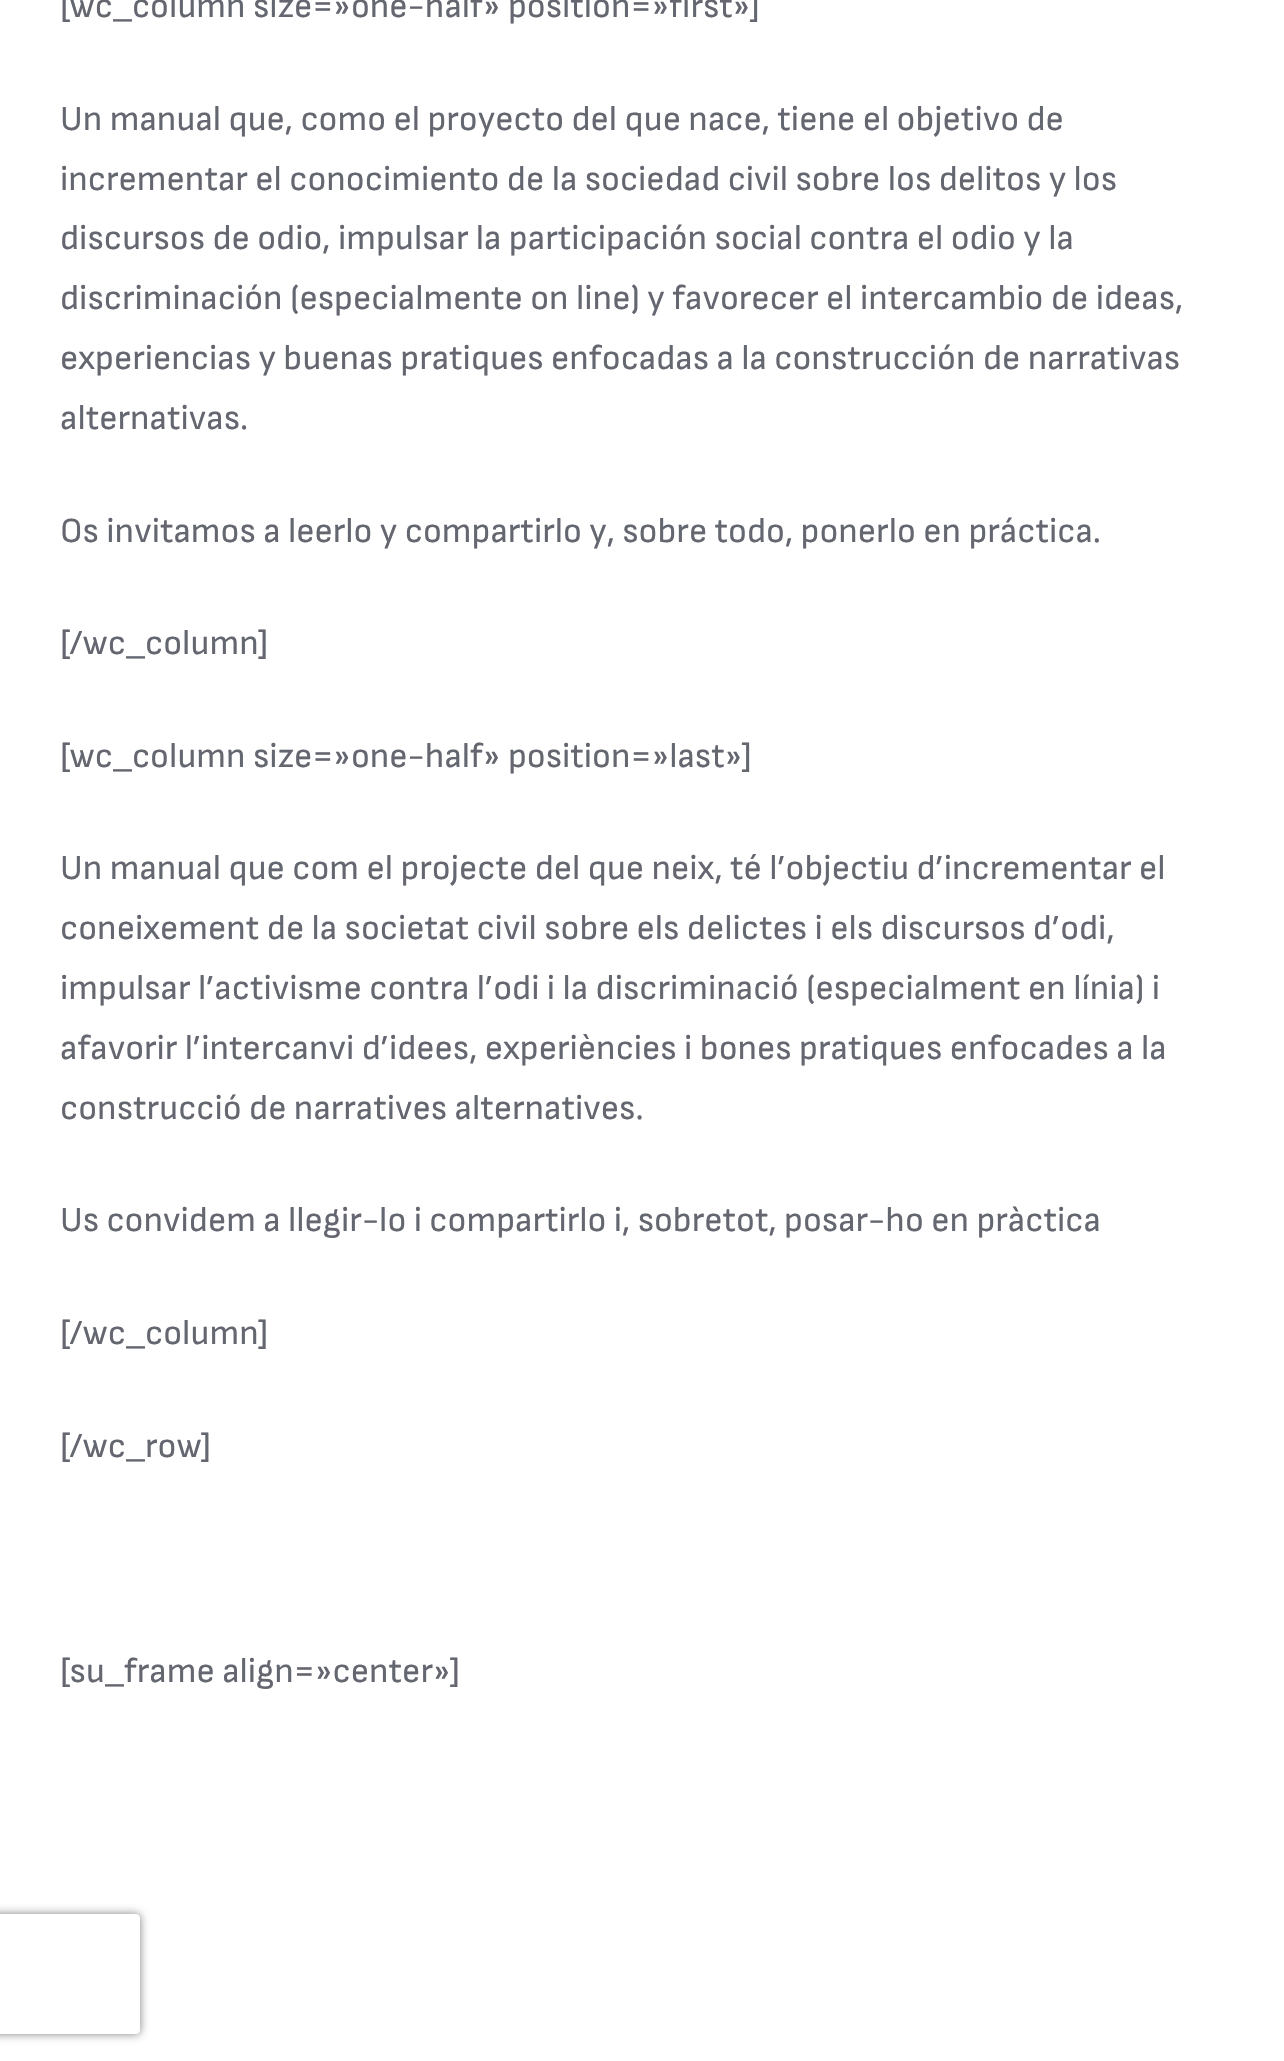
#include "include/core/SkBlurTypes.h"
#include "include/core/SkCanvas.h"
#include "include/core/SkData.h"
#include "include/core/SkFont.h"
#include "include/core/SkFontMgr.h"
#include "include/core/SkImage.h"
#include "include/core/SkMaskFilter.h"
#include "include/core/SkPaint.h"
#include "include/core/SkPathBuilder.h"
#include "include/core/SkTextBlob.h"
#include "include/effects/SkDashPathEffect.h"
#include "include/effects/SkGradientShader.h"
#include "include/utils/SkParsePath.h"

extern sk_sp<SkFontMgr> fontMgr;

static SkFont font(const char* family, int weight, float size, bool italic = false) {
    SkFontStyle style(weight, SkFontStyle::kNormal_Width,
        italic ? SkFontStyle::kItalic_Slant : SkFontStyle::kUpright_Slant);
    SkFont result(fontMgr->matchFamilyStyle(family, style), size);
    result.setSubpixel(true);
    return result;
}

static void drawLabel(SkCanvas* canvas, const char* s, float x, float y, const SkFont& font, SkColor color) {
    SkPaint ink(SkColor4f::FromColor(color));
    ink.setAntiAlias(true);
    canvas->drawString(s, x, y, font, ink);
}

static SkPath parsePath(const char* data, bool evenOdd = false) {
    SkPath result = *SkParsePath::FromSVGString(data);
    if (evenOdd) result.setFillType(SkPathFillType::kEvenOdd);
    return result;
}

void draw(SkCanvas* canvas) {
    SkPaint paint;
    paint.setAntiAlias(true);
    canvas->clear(0xFFFFFFFF);
    SkFont font1 = font("Sofia Sans", 400, 35.2f);
    drawLabel(canvas, "[wc_column size=»one-half» position=»first»]", 60, 17, font1, 0xFF646670);
    drawLabel(canvas, "Un manual que, como el proyecto del que nace, tiene el objetivo de", 60, 130, font1, 0xFF646670);
    drawLabel(canvas, "incrementar el conocimiento de la sociedad civil sobre los delitos y los", 60, 190, font1, 0xFF646670);
    drawLabel(canvas, "discursos de odio, impulsar la participación social contra el odio y la", 60, 249, font1, 0xFF646670);
    drawLabel(canvas, "discriminación (especialmente on line) y favorecer el intercambio de ideas,", 60, 309, font1, 0xFF646670);
    drawLabel(canvas, "experiencias y buenas pratiques enfocadas a la construcción de narrativas", 60, 369, font1, 0xFF646670);
    drawLabel(canvas, "alternativas.", 60, 429, font1, 0xFF646670);
    drawLabel(canvas, "Os invitamos a leerlo y compartirlo y, sobre todo, ponerlo en práctica.", 60, 542, font1, 0xFF646670);
    drawLabel(canvas, "[/wc_column]", 60, 654, font1, 0xFF646670);
    drawLabel(canvas, "[wc_column size=»one-half» position=»last»]", 60, 767, font1, 0xFF646670);
    drawLabel(canvas, "Un manual que com el projecte del que neix, té l’objectiu d’incrementar el", 60, 879, font1, 0xFF646670);
    drawLabel(canvas, "coneixement de la societat civil sobre els delictes i els discursos d’odi,", 60, 939, font1, 0xFF646670);
    drawLabel(canvas, "impulsar l’activisme contra l’odi i la discriminació (especialment en línia) i", 60, 999, font1, 0xFF646670);
    drawLabel(canvas, "afavorir l’intercanvi d’idees, experiències i bones pratiques enfocades a la", 60, 1059, font1, 0xFF646670);
    drawLabel(canvas, "construcció de narratives alternatives.", 60, 1119, font1, 0xFF646670);
    drawLabel(canvas, "Us convidem a llegir-lo i compartirlo i, sobretot, posar-ho en pràctica", 60, 1231, font1, 0xFF646670);
    drawLabel(canvas, "[/wc_column]", 60, 1344, font1, 0xFF646670);
    drawLabel(canvas, "[/wc_row]", 60, 1457, font1, 0xFF646670);
    drawLabel(canvas, "[su_frame align=»center»]", 60, 1682, font1, 0xFF646670);
    canvas->save();
    canvas->clipPath(parsePath("M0 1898H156V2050H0ZM-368 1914H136C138 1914 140 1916 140 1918V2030C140 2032 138 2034 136 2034H-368C-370 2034-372 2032-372 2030V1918C-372 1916-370 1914-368 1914Z", true), true);
    paint.setColor(0xFF808080);
    paint.setMaskFilter(SkMaskFilter::MakeBlur(kNormal_SkBlurStyle, 5));
    canvas->drawRoundRect(SkRect::MakeXYWH(-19, 1914, 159, 120), 4, 4, paint);
    paint.setMaskFilter(nullptr);
    canvas->restore();
}
